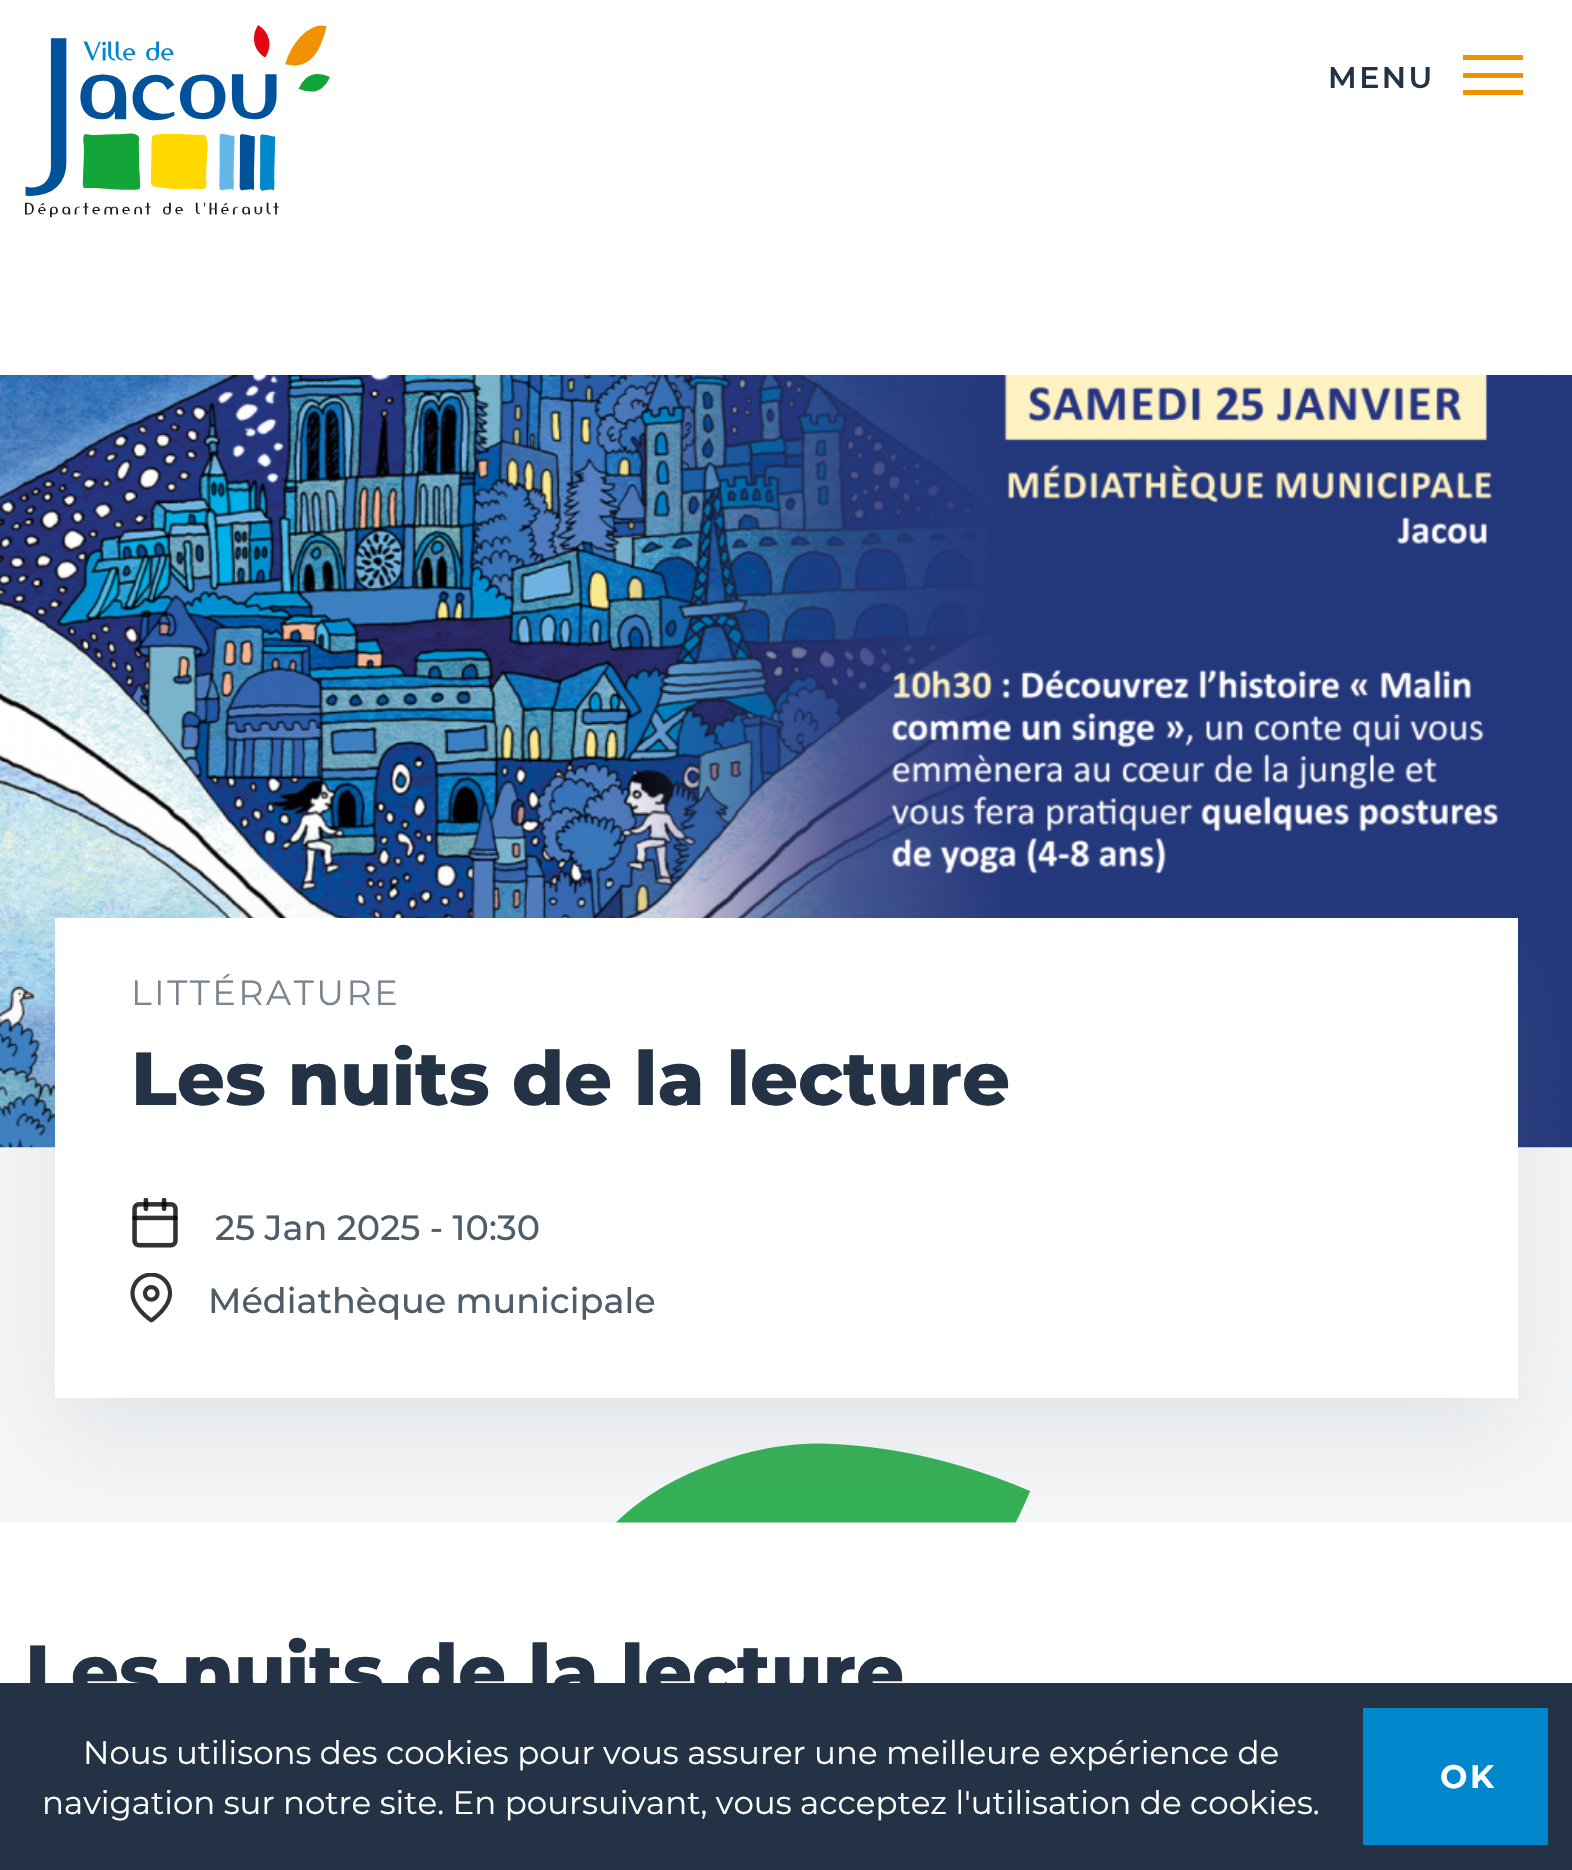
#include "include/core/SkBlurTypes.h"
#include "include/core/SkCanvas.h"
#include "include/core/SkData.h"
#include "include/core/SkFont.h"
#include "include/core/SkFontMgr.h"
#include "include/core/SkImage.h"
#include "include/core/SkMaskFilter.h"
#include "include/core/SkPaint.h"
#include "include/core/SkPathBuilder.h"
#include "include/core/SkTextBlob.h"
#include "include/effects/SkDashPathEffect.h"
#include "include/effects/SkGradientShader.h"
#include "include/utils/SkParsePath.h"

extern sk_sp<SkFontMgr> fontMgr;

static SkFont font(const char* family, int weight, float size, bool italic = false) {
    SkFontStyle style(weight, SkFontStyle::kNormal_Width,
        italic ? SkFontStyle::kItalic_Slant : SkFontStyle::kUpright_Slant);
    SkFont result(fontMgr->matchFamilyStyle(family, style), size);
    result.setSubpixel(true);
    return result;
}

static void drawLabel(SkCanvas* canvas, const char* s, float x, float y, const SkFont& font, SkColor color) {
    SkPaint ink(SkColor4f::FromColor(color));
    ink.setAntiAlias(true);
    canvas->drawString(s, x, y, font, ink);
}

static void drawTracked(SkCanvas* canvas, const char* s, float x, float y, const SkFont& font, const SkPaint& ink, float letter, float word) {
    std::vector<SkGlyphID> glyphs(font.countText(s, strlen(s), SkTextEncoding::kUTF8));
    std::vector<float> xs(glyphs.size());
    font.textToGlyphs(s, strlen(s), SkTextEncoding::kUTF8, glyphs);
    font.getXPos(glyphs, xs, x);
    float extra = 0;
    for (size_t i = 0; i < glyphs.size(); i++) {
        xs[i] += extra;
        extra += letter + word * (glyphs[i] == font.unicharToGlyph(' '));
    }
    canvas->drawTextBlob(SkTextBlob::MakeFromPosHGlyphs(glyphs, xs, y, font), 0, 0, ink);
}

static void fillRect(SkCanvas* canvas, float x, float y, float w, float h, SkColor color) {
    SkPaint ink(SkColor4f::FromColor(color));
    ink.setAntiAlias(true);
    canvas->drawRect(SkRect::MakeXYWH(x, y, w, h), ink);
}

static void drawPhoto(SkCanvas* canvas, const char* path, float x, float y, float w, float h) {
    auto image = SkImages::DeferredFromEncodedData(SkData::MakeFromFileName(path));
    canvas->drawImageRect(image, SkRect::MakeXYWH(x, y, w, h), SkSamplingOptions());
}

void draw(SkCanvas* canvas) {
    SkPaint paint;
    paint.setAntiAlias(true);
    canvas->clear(0xFFFFFFFF);
    SkFont font1 = font("Montserrat", 600, 30);
    paint.setColor(0xFF233345);
    drawTracked(canvas, "MENU", 1328, 88, font1, paint, 2.5f, 0);
    fillRect(canvas, 1463, 73, 60, 5, 0xFFF39200);
    fillRect(canvas, 1463, 55, 60, 5, 0xFFF39200);
    fillRect(canvas, 1463, 90, 60, 5, 0xFFF39200);
    drawPhoto(canvas, "assets/img1.png", 25, 25, 305, 193);
    drawPhoto(canvas, "assets/img2.png", 0, 1147, 1572, 376);
    drawPhoto(canvas, "assets/img3.png", 0, 375, 1572, 773);
    paint.setColor(0x26777D83);
    paint.setMaskFilter(SkMaskFilter::MakeBlur(kNormal_SkBlurStyle, 44));
    canvas->drawRect(SkRect::MakeXYWH(55, 955, 1463, 480), paint);
    paint.setMaskFilter(nullptr);
    fillRect(canvas, 55, 918, 1463, 480, 0xFFFFFFFF);
    SkFont font2 = font("Montserrat", 400, 35);
    paint.setColor(0xFF7B858F);
    drawTracked(canvas, "LITTÉRATURE", 131, 1005, font2, paint, 2.5f, 0);
    SkFont font3 = font("Montserrat", 800, 75);
    drawLabel(canvas, "Les nuits de la lecture", 131, 1105, font3, 0xFF233345);
    drawPhoto(canvas, "assets/img4.png", 132, 1198, 46, 50);
    SkFont font4 = font("Montserrat", 500, 35);
    drawLabel(canvas, "25 Jan 2025 - 10:30", 215, 1240, font4, 0xFF4F5C6A);
    drawPhoto(canvas, "assets/img5.png", 130, 1273, 43, 50);
    drawLabel(canvas, "Médiathèque municipale", 208, 1313, font4, 0xFF4F5C6A);
    drawLabel(canvas, "Les nuits de la lecture", 25, 1698, font3, 0xFF233345);
    fillRect(canvas, 0, 1683, 1572, 187, 0xFF233345);
    SkFont font5 = font("Montserrat", 400, 32.5f);
    drawLabel(canvas, "Nous utilisons des cookies pour vous assurer une meilleure expérience de", 83, 1764, font5, 0xFFFFFFFF);
    drawLabel(canvas, "navigation sur notre site. En poursuivant, vous acceptez l'utilisation de cookies.", 42, 1814, font5, 0xFFFFFFFF);
    fillRect(canvas, 1363, 1708, 185, 137, 0xFF0087CC);
    SkFont font6 = font("Montserrat", 700, 32.5f);
    paint.setColor(0xFFFFFFFF);
    drawTracked(canvas, "OK", 1440, 1788, font6, paint, 2.5f, 0);
}
